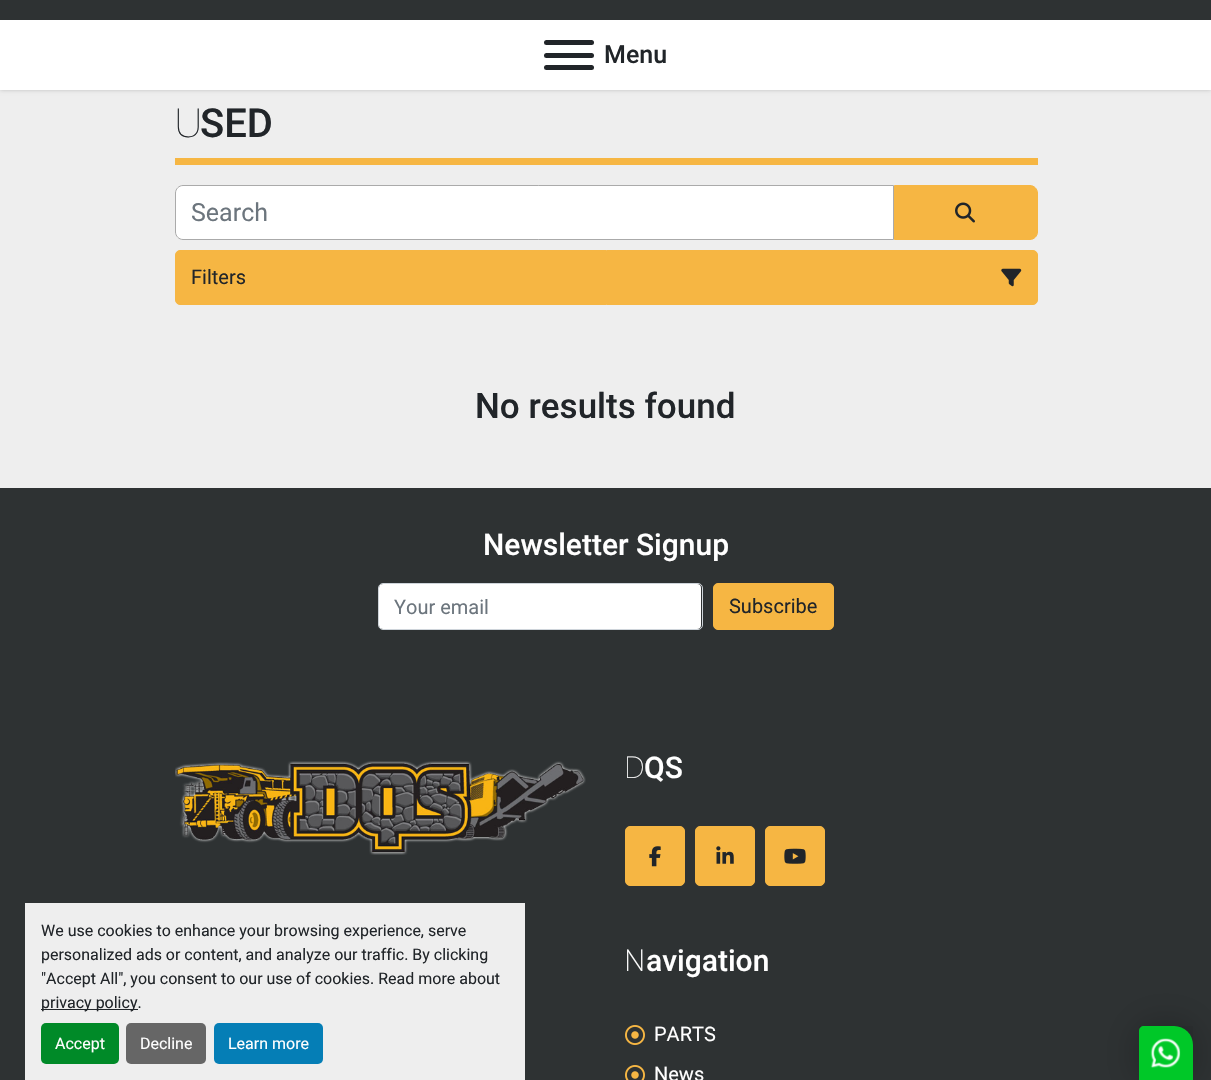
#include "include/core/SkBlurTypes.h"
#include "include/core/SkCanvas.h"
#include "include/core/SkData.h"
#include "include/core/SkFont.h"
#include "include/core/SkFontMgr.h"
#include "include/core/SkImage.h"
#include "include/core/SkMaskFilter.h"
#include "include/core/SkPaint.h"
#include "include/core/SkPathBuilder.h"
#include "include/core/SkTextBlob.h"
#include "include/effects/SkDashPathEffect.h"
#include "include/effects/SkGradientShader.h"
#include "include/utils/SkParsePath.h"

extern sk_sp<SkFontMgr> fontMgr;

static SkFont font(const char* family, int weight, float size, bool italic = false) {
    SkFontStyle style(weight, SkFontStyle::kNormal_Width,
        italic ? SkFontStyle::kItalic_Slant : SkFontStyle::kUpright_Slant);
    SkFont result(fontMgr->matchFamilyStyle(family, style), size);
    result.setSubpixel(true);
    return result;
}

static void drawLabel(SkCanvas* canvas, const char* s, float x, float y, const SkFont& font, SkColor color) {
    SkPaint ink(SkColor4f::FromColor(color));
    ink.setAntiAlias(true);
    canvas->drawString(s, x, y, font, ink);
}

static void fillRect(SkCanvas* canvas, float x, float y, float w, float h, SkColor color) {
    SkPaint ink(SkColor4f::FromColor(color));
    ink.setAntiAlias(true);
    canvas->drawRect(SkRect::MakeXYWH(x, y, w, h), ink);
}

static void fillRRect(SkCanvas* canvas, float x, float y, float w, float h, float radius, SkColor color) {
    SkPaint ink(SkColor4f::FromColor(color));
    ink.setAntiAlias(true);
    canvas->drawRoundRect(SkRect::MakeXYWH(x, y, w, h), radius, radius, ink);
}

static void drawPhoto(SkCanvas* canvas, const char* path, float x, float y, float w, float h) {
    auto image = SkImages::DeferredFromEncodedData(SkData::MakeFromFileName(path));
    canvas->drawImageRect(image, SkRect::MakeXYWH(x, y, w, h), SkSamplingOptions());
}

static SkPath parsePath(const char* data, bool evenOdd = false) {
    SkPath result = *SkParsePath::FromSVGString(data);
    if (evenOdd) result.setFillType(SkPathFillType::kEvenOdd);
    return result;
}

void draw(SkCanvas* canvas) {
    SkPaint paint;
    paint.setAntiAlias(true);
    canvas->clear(0xFFEEEEEE);
    paint.setColor(0x33000000);
    paint.setMaskFilter(SkMaskFilter::MakeBlur(kNormal_SkBlurStyle, 2));
    canvas->drawRect(SkRect::MakeXYWH(0, -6, 1211, 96), paint);
    paint.setMaskFilter(nullptr);
    fillRect(canvas, 0, 0, 1211, 20, 0xFF2E3233);
    fillRect(canvas, 0, 20, 1211, 70, 0xFFFFFFFF);
    fillRRect(canvas, 544, 53, 50, 5, 2.5f, 0xFF212529);
    fillRRect(canvas, 544, 40, 50, 5, 2.5f, 0xFF212529);
    fillRRect(canvas, 544, 65, 50, 5, 2.5f, 0xFF212529);
    SkFont font1 = font("Roboto", 500, 25);
    drawLabel(canvas, "Menu", 604, 63, font1, 0xFF212529);
    fillRect(canvas, 175, 158, 863, 7, 0xFFF6B643);
    SkFont font2 = font("Noto Sans", 100, 40);
    drawLabel(canvas, "U", 174, 137, font2, 0xFF212529);
    SkFont font3 = font("Roboto", 500, 40);
    drawLabel(canvas, "SED", 200, 137, font3, 0xFF212529);
    paint.setColor(0xFFFFFFFF);
    canvas->drawPath(parsePath("M182 186H893V239H182C178.5 239 176 236.5 176 233V192C176 188.5 178.5 186 182 186Z"), paint);
    paint.setStroke(true);
    paint.setStrokeWidth(1);
    paint.setColor(0xFFAAAAAA);
    canvas->drawPath(parsePath("M183 185.5H893.5V239.5H183C179 239.5 175.5 236 175.5 232V193C175.5 189 179 185.5 183 185.5Z"), paint);
    SkFont font4 = font("Roboto", 400, 25);
    drawLabel(canvas, "Search", 191, 221, font4, 0xFF6C757D);
    paint.setStroke(false);
    paint.setColor(0xFFF6B643);
    canvas->drawPath(parsePath("M894.5 185.5H1030C1034 185.5 1037.5 189 1037.5 193V232C1037.5 236 1034 239.5 1030 239.5H894.5Z"), paint);
    paint.setStroke(true);
    canvas->drawPath(parsePath("M894.5 185.5H1030C1034 185.5 1037.5 189 1037.5 193V232C1037.5 236 1034 239.5 1030 239.5H894.5Z"), paint);
    drawPhoto(canvas, "assets/img1.png", 955, 202, 20, 21);
    paint.setStroke(false);
    canvas->drawRoundRect(SkRect::MakeXYWH(175.5f, 250.5f, 862, 54), 4.5f, 4.5f, paint);
    paint.setStroke(true);
    canvas->drawRoundRect(SkRect::MakeXYWH(175.5f, 250.5f, 862, 54), 4.5f, 4.5f, paint);
    SkFont font5 = font("Roboto", 400, 20);
    drawLabel(canvas, "Filters", 191, 284, font5, 0xFF212529);
    drawPhoto(canvas, "assets/img2.png", 1001, 268, 21, 19);
    SkFont font6 = font("Roboto", 500, 35);
    drawLabel(canvas, "No results found", 475, 418, font6, 0xFF212529);
    fillRect(canvas, 0, 488, 1211, 592, 0xFF2E3233);
    SkFont font7 = font("Roboto", 500, 30);
    drawLabel(canvas, "Newsletter Signup", 483, 555, font7, 0xFFFFFFFF);
    fillRRect(canvas, 379, 584, 322, 45, 4, 0xFFFFFFFF);
    paint.setColor(0xFFCED4DA);
    canvas->drawRoundRect(SkRect::MakeXYWH(378.5f, 583.5f, 324, 46), 4.5f, 4.5f, paint);
    drawLabel(canvas, "Your email", 394, 614, font5, 0xFF6C757D);
    paint.setStroke(false);
    paint.setColor(0xFFF6B643);
    canvas->drawRoundRect(SkRect::MakeXYWH(713.5f, 583.5f, 120, 46), 4.5f, 4.5f, paint);
    paint.setStroke(true);
    canvas->drawRoundRect(SkRect::MakeXYWH(713.5f, 583.5f, 120, 46), 4.5f, 4.5f, paint);
    drawLabel(canvas, "Subscribe", 729, 613, font5, 0xFF212529);
    drawPhoto(canvas, "assets/img3.png", 175, 761, 411, 94);
    SkFont font8 = font("Noto Sans", 100, 30);
    drawLabel(canvas, "D", 624, 778, font8, 0xFFFFFFFF);
    drawLabel(canvas, "QS", 644, 778, font7, 0xFFFFFFFF);
    paint.setStroke(false);
    canvas->drawRoundRect(SkRect::MakeXYWH(625.5f, 826.5f, 59, 59), 4.5f, 4.5f, paint);
    paint.setStroke(true);
    canvas->drawRoundRect(SkRect::MakeXYWH(625.5f, 826.5f, 59, 59), 4.5f, 4.5f, paint);
    drawPhoto(canvas, "assets/img4.png", 649, 846, 12, 21);
    paint.setStroke(false);
    canvas->drawRoundRect(SkRect::MakeXYWH(695.5f, 826.5f, 59, 59), 4.5f, 4.5f, paint);
    paint.setStroke(true);
    canvas->drawRoundRect(SkRect::MakeXYWH(695.5f, 826.5f, 59, 59), 4.5f, 4.5f, paint);
    drawPhoto(canvas, "assets/img5.png", 716, 846, 18, 18);
    paint.setStroke(false);
    canvas->drawRoundRect(SkRect::MakeXYWH(765.5f, 826.5f, 59, 59), 4.5f, 4.5f, paint);
    paint.setStroke(true);
    canvas->drawRoundRect(SkRect::MakeXYWH(765.5f, 826.5f, 59, 59), 4.5f, 4.5f, paint);
    drawPhoto(canvas, "assets/img6.png", 784, 848, 22, 16);
    SkFont font9 = font("Noto Sans", 200, 30);
    drawLabel(canvas, "N", 624, 971, font9, 0xFFFFFFFF);
    drawLabel(canvas, "avigation", 646, 971, font7, 0xFFFFFFFF);
    drawPhoto(canvas, "assets/img7.png", 625, 1025, 20, 20);
    drawLabel(canvas, "PARTS", 654, 1041, font5, 0xFFFFFFFF);
    drawPhoto(canvas, "assets/img8.png", 625, 1065, 20, 15);
    drawLabel(canvas, "News", 654, 1081, font5, 0xFFFFFFFF);
    fillRect(canvas, 25, 903, 500, 177, 0xFFEEEEEE);
    SkFont font10 = font("Roboto", 400, 16);
    drawLabel(canvas, "We use cookies to enhance your browsing experience, serve", 41, 936, font10, 0xFF212529);
    drawLabel(canvas, "personalized ads or content, and analyze our traffic. By clicking", 41, 960, font10, 0xFF212529);
    drawLabel(canvas, "\"Accept All\", you consent to our use of cookies. Read more about", 41, 984, font10, 0xFF212529);
    fillRect(canvas, 41, 1009, 97, 1, 0xFF212529);
    drawLabel(canvas, "privacy policy.", 41, 1008, font10, 0xFF212529);
    fillRRect(canvas, 41, 1023, 78, 41, 5, 0xFF008A28);
    drawLabel(canvas, "Accept", 55, 1049, font10, 0xFFFFFFFF);
    fillRRect(canvas, 126, 1023, 80, 41, 5, 0xFF666666);
    drawLabel(canvas, "Decline", 140, 1049, font10, 0xFFFFFFFF);
    fillRRect(canvas, 214, 1023, 109, 41, 5, 0xFF057EB6);
    drawLabel(canvas, "Learn more", 228, 1049, font10, 0xFFFFFFFF);
    paint.setStroke(false);
    paint.setColor(0x4D000000);
    paint.setMaskFilter(SkMaskFilter::MakeBlur(kNormal_SkBlurStyle, 19));
    canvas->drawRoundRect(SkRect::MakeXYWH(1139, 1026, 54, 54), 19, 19, paint);
    paint.setMaskFilter(nullptr);
    paint.setColor(0xFF00D32A);
    canvas->drawPath(parsePath("M1144 1026H1174C1184.5 1026 1193 1034.5 1193 1045V1080H1139V1031C1139 1028 1141 1026 1144 1026Z"), paint);
    fillRect(canvas, 1139, 1026, 54, 54, 0x0D000000);
    drawPhoto(canvas, "assets/img9.png", 1150, 1038, 31, 30);
}
